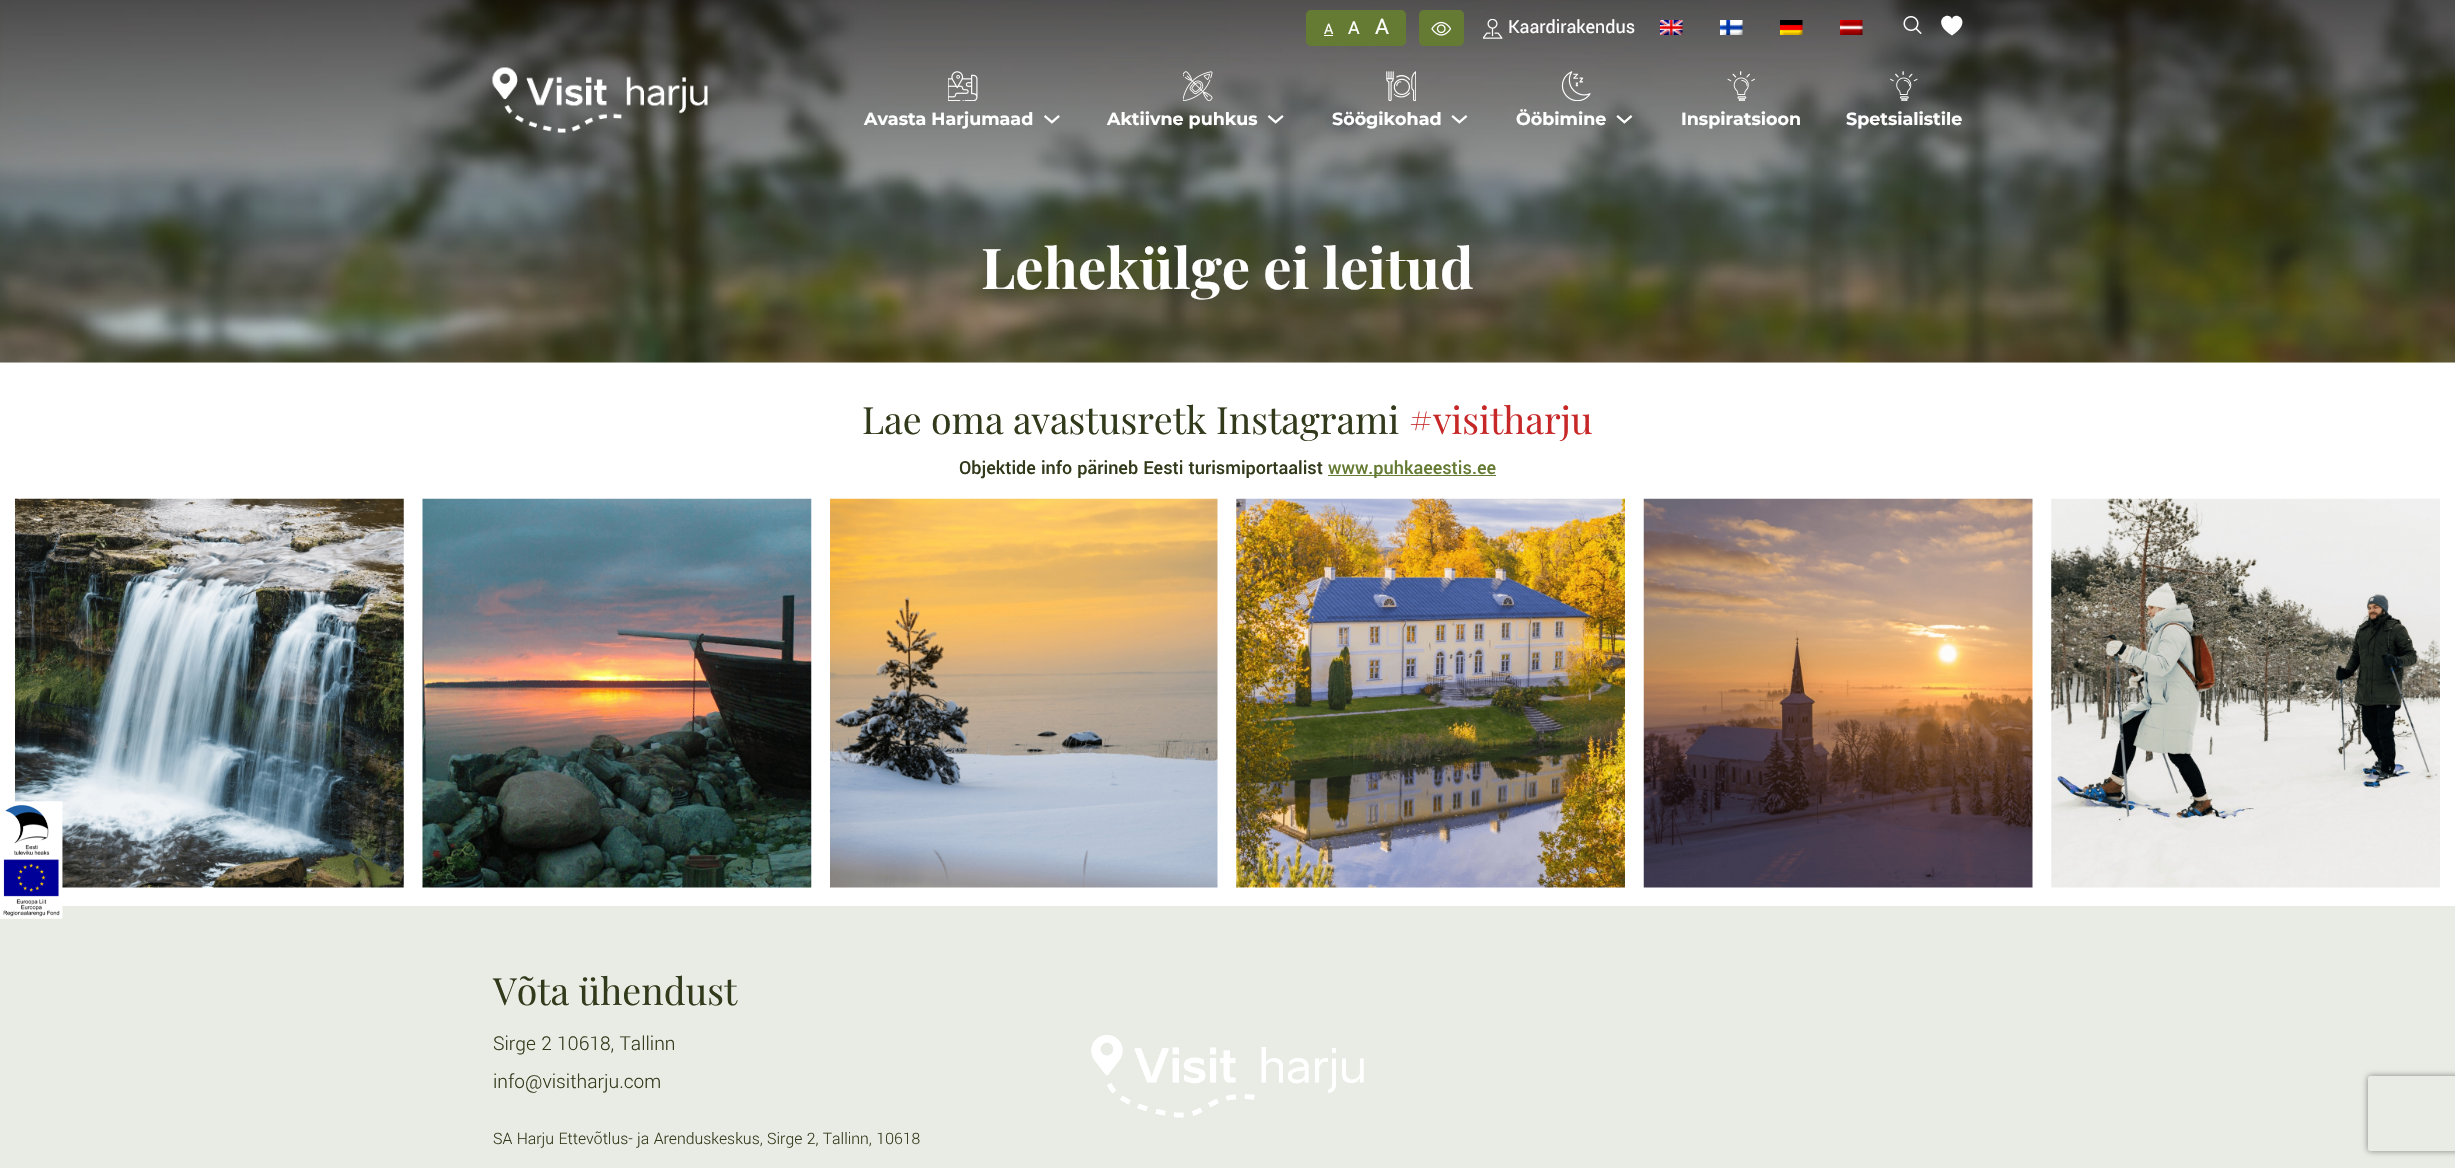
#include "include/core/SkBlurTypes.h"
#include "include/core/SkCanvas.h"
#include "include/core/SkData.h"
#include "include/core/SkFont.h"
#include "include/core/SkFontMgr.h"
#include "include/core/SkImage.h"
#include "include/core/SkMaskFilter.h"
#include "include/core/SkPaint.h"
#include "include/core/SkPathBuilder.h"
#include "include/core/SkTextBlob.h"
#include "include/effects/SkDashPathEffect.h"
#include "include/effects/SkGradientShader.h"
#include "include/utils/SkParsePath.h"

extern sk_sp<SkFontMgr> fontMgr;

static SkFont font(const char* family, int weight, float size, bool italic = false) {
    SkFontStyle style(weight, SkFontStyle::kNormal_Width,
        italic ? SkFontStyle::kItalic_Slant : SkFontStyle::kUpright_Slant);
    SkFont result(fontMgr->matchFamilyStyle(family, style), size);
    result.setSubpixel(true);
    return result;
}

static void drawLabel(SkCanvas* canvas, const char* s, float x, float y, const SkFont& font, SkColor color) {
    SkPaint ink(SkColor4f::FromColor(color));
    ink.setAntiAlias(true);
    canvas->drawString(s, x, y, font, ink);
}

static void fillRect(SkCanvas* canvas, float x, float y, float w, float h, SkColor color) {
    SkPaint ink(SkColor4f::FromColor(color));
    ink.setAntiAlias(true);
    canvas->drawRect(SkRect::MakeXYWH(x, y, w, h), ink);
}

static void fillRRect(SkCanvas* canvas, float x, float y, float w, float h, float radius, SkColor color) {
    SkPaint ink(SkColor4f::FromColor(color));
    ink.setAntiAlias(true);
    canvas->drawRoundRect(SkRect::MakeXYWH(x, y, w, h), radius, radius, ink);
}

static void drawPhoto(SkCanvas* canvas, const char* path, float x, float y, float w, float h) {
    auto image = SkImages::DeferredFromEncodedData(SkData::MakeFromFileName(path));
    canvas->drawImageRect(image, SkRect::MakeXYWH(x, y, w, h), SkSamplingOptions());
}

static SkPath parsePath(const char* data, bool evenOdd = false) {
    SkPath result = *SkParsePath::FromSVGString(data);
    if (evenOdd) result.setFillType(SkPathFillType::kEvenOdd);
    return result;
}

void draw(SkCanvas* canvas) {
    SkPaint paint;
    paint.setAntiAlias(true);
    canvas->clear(0xFFF5F8F2);
    drawPhoto(canvas, "assets/img19.png", 0, 0, 2455, 363);
    fillRRect(canvas, 1306, 10, 100, 36, 5, 0xFF657B33);
    SkFont font1 = font("Yantramanav", 400, 16);
    drawLabel(canvas, "A", 1324, 34, font1, 0xFFFFFFFF);
    fillRect(canvas, 1324, 35, 9, 1, 0xFFFFFFFF);
    SkFont font2 = font("Yantramanav", 400, 20);
    drawLabel(canvas, "A", 1348, 34, font2, 0xFFFFFFFF);
    SkFont font3 = font("Yantramanav", 400, 24);
    drawLabel(canvas, "A", 1375, 34, font3, 0xFFFFFFFF);
    fillRRect(canvas, 1419, 10, 45, 36, 5, 0xFF657B33);
    drawPhoto(canvas, "assets/img1.png", 1431, 21, 20, 15);
    drawPhoto(canvas, "assets/img2.png", 1483, 19, 20, 20);
    drawLabel(canvas, "Kaardirakendus", 1508, 33, font2, 0xFFFFFFFF);
    drawPhoto(canvas, "assets/img3.png", 1660, 20, 23, 15);
    drawPhoto(canvas, "assets/img4.png", 1720, 20, 23, 15);
    drawPhoto(canvas, "assets/img5.png", 1780, 20, 23, 15);
    drawPhoto(canvas, "assets/img6.png", 1840, 20, 23, 15);
    drawPhoto(canvas, "assets/img7.png", 1903, 16, 19, 18);
    paint.setColor(0xFFFFFFFF);
    canvas->drawPath(parsePath("M1952 19C1948.5 10 1929.5 21.5 1952 35.5C1974 21.5 1955 10 1952 19Z"), paint);
    drawPhoto(canvas, "assets/img8.png", 492, 67, 216, 66);
    drawPhoto(canvas, "assets/img9.png", 948, 71, 30, 30);
    SkFont font4 = font("Montserrat", 700, 17.5f);
    drawLabel(canvas, "Avasta Harjumaad", 864, 125, font4, 0xFFFFFFFF);
    drawPhoto(canvas, "assets/img10.png", 1044, 115, 16, 9);
    drawPhoto(canvas, "assets/img11.png", 1183, 71, 30, 30);
    drawLabel(canvas, "Aktiivne puhkus", 1107, 125, font4, 0xFFFFFFFF);
    drawPhoto(canvas, "assets/img12.png", 1267, 115, 17, 9);
    drawPhoto(canvas, "assets/img13.png", 1386, 71, 30, 30);
    drawLabel(canvas, "Söögikohad", 1332, 125, font4, 0xFFFFFFFF);
    drawPhoto(canvas, "assets/img14.png", 1451, 115, 17, 9);
    drawPhoto(canvas, "assets/img15.png", 1561, 71, 30, 30);
    drawLabel(canvas, "Ööbimine", 1516, 125, font4, 0xFFFFFFFF);
    drawPhoto(canvas, "assets/img16.png", 1616, 115, 17, 9);
    drawPhoto(canvas, "assets/img17.png", 1727, 71, 28, 30);
    drawLabel(canvas, "Inspiratsioon", 1681, 125, font4, 0xFFFFFFFF);
    drawPhoto(canvas, "assets/img18.png", 1890, 71, 28, 30);
    drawLabel(canvas, "Spetsialistile", 1846, 125, font4, 0xFFFFFFFF);
    SkFont font5 = font("Playfair Display", 700, 56.25f);
    drawLabel(canvas, "Lehekülge ei leitud", 981, 289, font5, 0xFFFFFFFF);
    fillRect(canvas, 0, 906, 2455, 262, 0xFFE8ECE4);
    fillRect(canvas, 0, 363, 2455, 543, 0xFFFFFFFF);
    drawPhoto(canvas, "assets/img21.png", 15, 498, 389, 390);
    drawPhoto(canvas, "assets/img20.png", 0, 801, 63, 118);
    SkFont font6 = font("Playfair Display", 400, 37.5f);
    drawLabel(canvas, "Lae oma avastusretk Instagrami", 862, 434, font6, 0xFF313A1B);
    drawLabel(canvas, "#visitharju", 1409, 434, font6, 0xFFC72727);
    SkFont font7 = font("Yantramanav", 500, 20);
    drawLabel(canvas, "Objektide info pärineb Eesti turismiportaalist", 959, 474, font7, 0xFF313A1B);
    fillRect(canvas, 1328, 475, 168, 1, 0xFF657B33);
    drawLabel(canvas, "www.puhkaeestis.ee", 1328, 474, font7, 0xFF657B33);
    drawPhoto(canvas, "assets/img22.png", 422, 498, 390, 390);
    drawPhoto(canvas, "assets/img23.png", 830, 498, 388, 390);
    drawPhoto(canvas, "assets/img24.png", 1236, 498, 389, 390);
    drawPhoto(canvas, "assets/img25.png", 1643, 498, 390, 390);
    drawPhoto(canvas, "assets/img26.png", 2051, 498, 389, 390);
    drawLabel(canvas, "Võta ühendust", 493, 1005, font6, 0xFF313A1B);
    SkFont font8 = font("Yantramanav", 300, 21.25f);
    drawLabel(canvas, "Sirge 2 10618, Tallinn", 493, 1050, font8, 0xFF313A1B);
    drawLabel(canvas, "info@visitharju.com", 493, 1088, font8, 0xFF313A1B);
    SkFont font9 = font("Yantramanav", 300, 17.5f);
    drawLabel(canvas, "SA Harju Ettevõtlus- ja Arenduskeskus, Sirge 2, Tallinn, 10618", 493, 1144, font9, 0xFF313A1B);
    drawPhoto(canvas, "assets/img27.png", 1091, 1035, 273, 83);
    canvas->save();
    canvas->clipPath(parsePath("M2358 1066H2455V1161H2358ZM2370.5 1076H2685.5C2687 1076 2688 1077 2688 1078.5V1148.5C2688 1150 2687 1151 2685.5 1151H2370.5C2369 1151 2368 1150 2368 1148.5V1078.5C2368 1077 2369 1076 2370.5 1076Z", true), true);
    paint.setColor(0xFF808080);
    paint.setMaskFilter(SkMaskFilter::MakeBlur(kNormal_SkBlurStyle, 3));
    canvas->drawRoundRect(SkRect::MakeXYWH(2368, 1076, 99, 75), 2.5f, 2.5f, paint);
    paint.setMaskFilter(nullptr);
    canvas->restore();
}
